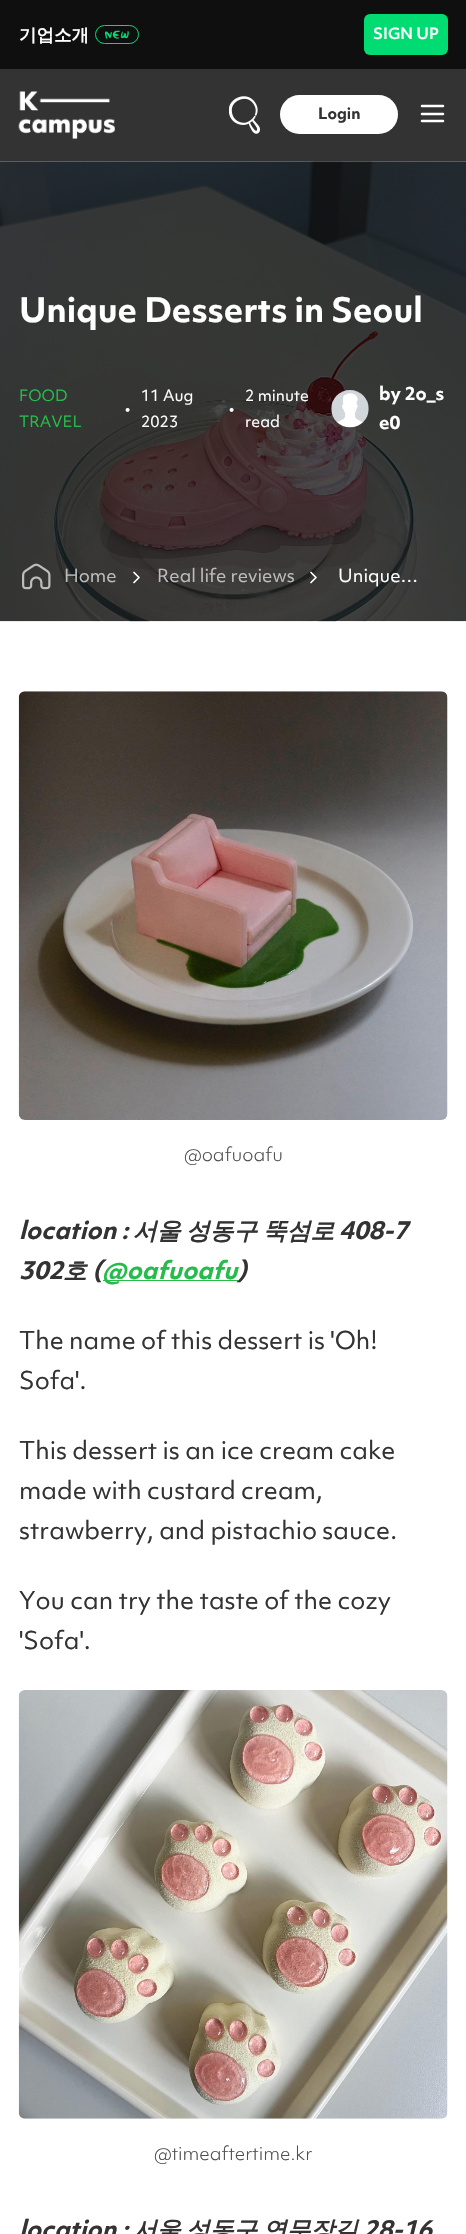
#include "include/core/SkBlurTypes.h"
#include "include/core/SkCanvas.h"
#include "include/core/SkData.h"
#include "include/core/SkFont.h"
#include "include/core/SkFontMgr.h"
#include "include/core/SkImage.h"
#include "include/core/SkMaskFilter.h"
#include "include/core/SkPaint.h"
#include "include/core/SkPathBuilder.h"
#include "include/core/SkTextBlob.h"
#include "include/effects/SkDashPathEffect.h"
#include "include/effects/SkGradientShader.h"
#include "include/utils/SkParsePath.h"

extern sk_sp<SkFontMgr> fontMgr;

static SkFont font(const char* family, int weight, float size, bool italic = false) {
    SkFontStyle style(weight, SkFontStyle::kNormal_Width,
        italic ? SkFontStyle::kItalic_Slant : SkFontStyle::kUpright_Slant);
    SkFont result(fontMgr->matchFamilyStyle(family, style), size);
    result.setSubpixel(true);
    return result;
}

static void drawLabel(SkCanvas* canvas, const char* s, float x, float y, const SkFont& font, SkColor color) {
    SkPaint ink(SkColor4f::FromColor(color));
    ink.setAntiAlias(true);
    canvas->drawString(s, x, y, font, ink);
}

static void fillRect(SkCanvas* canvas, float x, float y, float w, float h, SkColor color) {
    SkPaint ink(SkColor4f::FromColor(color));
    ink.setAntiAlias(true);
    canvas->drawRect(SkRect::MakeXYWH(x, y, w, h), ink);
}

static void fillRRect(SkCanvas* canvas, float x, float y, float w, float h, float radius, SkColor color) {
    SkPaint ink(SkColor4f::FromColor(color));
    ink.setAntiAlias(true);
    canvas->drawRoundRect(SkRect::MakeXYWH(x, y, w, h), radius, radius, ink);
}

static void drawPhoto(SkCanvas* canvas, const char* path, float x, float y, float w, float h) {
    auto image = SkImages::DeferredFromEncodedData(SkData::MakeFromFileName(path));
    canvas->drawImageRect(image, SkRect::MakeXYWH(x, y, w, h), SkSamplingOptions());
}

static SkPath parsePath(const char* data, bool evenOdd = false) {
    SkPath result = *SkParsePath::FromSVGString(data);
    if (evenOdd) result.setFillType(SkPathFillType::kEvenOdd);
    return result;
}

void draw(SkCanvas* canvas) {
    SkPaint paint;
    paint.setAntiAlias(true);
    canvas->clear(0xFFFFFFFF);
    fillRect(canvas, 0, 0, 466, 69, 0xFF0F0F0F);
    SkFont font1 = font("WenQuanYi Zen Hei", 700, 17.5f);
    drawLabel(canvas, "기업소개", 19, 41, font1, 0xFFFFFFFF);
    drawPhoto(canvas, "assets/img1.png", 105, 30, 24, 9);
    paint.setStroke(true);
    paint.setStrokeWidth(1);
    paint.setColor(0xFF00DC72);
    canvas->drawRoundRect(SkRect::MakeXYWH(95.5f, 25.5f, 43, 18), 9, 9, paint);
    fillRRect(canvas, 364, 14, 84, 41, 6, 0xFF00DC72);
    SkFont font2 = font("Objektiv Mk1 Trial", 600, 15);
    drawLabel(canvas, "SIGN UP", 373, 39, font2, 0xFFFFFFFF);
    fillRect(canvas, 0, 69, 466, 92, 0xFF333333);
    drawPhoto(canvas, "assets/img2.png", 18, 91, 97, 48);
    drawPhoto(canvas, "assets/img3.png", 229, 96, 31, 38);
    fillRRect(canvas, 280, 95, 118, 39, 19.5f, 0xFFFFFFFF);
    SkFont font3 = font("Objektiv Mk1 Trial", 700, 15);
    drawLabel(canvas, "Login", 318, 119, font3, 0xFF333333);
    paint.setStrokeWidth(2.5f);
    paint.setStrokeCap(SkPaint::kRound_Cap);
    paint.setColor(0xFFFFFFFF);
    canvas->drawPath(parsePath("M422 106H443M422 114H443M422 121H443"), paint);
    drawPhoto(canvas, "assets/img4.png", 0, 161, 466, 461);
    SkFont font4 = font("Objektiv Mk1 Trial", 700, 32.6f);
    drawLabel(canvas, "Unique Desserts in Seoul", 19, 322, font4, 0xFFFFFFFF);
    SkFont font5 = font("Objektiv Mk1 Trial", 400, 15);
    drawLabel(canvas, "FOOD", 19, 401, font5, 0xFF26BB4B);
    drawLabel(canvas, "TRAVEL", 19, 427, font5, 0xFF26BB4B);
    drawLabel(canvas, "•", 125, 414, font5, 0xFFFFFFFF);
    drawLabel(canvas, "11 Aug", 141, 401, font5, 0xFFFFFFFF);
    drawLabel(canvas, "2023", 141, 427, font5, 0xFFFFFFFF);
    drawLabel(canvas, "•", 229, 414, font5, 0xFFFFFFFF);
    drawLabel(canvas, "2 minute", 245, 401, font5, 0xFFFFFFFF);
    drawLabel(canvas, "read", 245, 427, font5, 0xFFFFFFFF);
    drawPhoto(canvas, "assets/img5.png", 331, 390, 38, 38);
    SkFont font6 = font("Objektiv Mk1 Trial", 700, 17.5f);
    drawLabel(canvas, "by 2o_s", 379, 400, font6, 0xFFFFFFFF);
    drawLabel(canvas, "e0", 379, 429, font6, 0xFFFFFFFF);
    drawPhoto(canvas, "assets/img6.png", 22, 563, 29, 27);
    SkFont font7 = font("Objektiv Mk1 Trial", 400, 17.5f);
    drawLabel(canvas, "Home", 64, 582, font7, 0xFFBDBDBD);
    paint.setStrokeWidth(1.7f);
    paint.setStrokeJoin(SkPaint::kRound_Join);
    canvas->drawPath(parsePath("M134 582.5L139 577.5L134 572.5"), paint);
    drawLabel(canvas, "Real life reviews", 157, 582, font7, 0xFFBDBDBD);
    canvas->drawPath(parsePath("M311 582.5L316 577.5L311 572.5"), paint);
    drawLabel(canvas, "Unique…", 338, 582, font7, 0xFFFFFFFF);
    drawPhoto(canvas, "assets/img7.png", 18, 691, 430, 429);
    SkFont font8 = font("Objektiv Mk1 Trial", 300, 18);
    drawLabel(canvas, "@oafuoafu", 184, 1161, font8, 0xFF4F4F4F);
    SkFont font9 = font("Objektiv Mk1 Trial", 700, 23.75f, true);
    drawLabel(canvas, "location :", 19, 1239, font9, 0xFF333333);
    SkFont font10 = font("WenQuanYi Zen Hei", 700, 23.75f, true);
    drawLabel(canvas, "서울", 133, 1239, font10, 0xFF333333);
    drawLabel(canvas, "성동구", 186, 1239, font10, 0xFF333333);
    drawLabel(canvas, "뚝섬로", 263, 1239, font10, 0xFF333333);
    drawLabel(canvas, "408-7", 339, 1239, font9, 0xFF333333);
    drawLabel(canvas, "302", 19, 1279, font9, 0xFF333333);
    drawLabel(canvas, "호", 63, 1279, font10, 0xFF333333);
    drawLabel(canvas, "(", 92, 1279, font9, 0xFF333333);
    fillRect(canvas, 103, 1280, 135, 1, 0xFF26BB4B);
    drawLabel(canvas, "@oafuoafu", 102, 1279, font9, 0xFF26BB4B);
    drawLabel(canvas, ")", 237, 1279, font9, 0xFF333333);
    SkFont font11 = font("Objektiv Mk1 Trial", 400, 23.75f);
    drawLabel(canvas, "The name of this dessert is 'Oh!", 19, 1349, font11, 0xFF333333);
    drawLabel(canvas, "Sofa'.", 19, 1389, font11, 0xFF333333);
    drawLabel(canvas, "This dessert is an ice cream cake", 19, 1459, font11, 0xFF333333);
    drawLabel(canvas, "made with custard cream,", 19, 1499, font11, 0xFF333333);
    drawLabel(canvas, "strawberry, and pistachio sauce.", 19, 1539, font11, 0xFF333333);
    drawLabel(canvas, "You can try the taste of the cozy", 19, 1609, font11, 0xFF333333);
    drawLabel(canvas, "'Sofa'.", 19, 1649, font11, 0xFF333333);
    drawPhoto(canvas, "assets/img8.png", 18, 1690, 430, 429);
    drawLabel(canvas, "@timeaftertime.kr", 154, 2160, font8, 0xFF4F4F4F);
    drawLabel(canvas, "location :", 19, 2238, font9, 0xFF333333);
    drawLabel(canvas, "서울", 133, 2238, font10, 0xFF333333);
    drawLabel(canvas, "성동구", 186, 2238, font10, 0xFF333333);
    drawLabel(canvas, "연무장길", 263, 2238, font10, 0xFF333333);
    drawLabel(canvas, "28-16", 363, 2238, font9, 0xFF333333);
}
